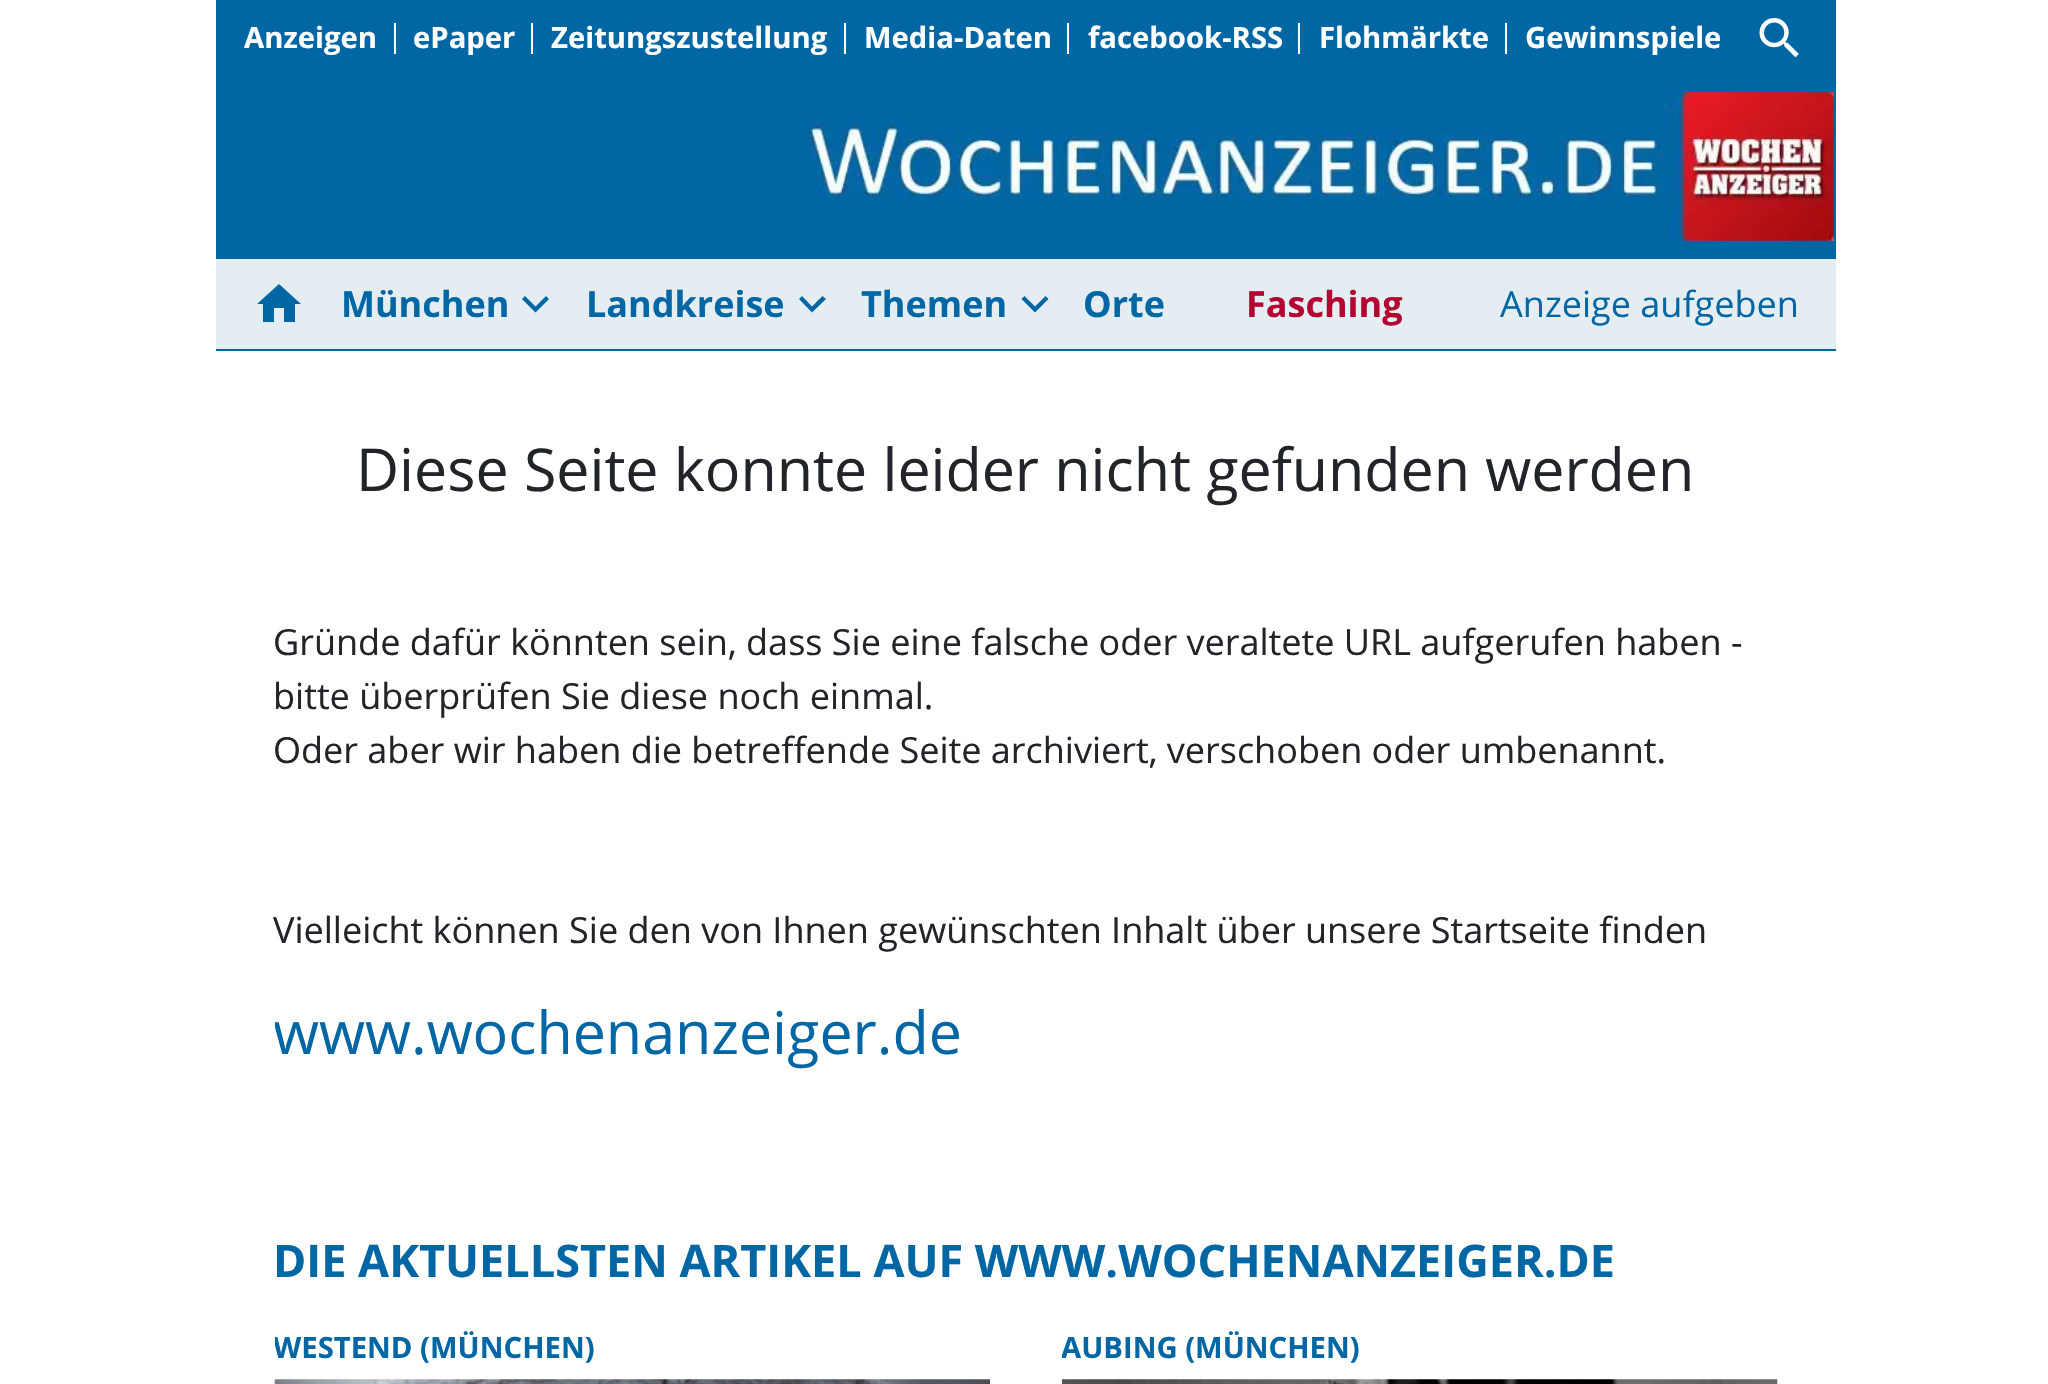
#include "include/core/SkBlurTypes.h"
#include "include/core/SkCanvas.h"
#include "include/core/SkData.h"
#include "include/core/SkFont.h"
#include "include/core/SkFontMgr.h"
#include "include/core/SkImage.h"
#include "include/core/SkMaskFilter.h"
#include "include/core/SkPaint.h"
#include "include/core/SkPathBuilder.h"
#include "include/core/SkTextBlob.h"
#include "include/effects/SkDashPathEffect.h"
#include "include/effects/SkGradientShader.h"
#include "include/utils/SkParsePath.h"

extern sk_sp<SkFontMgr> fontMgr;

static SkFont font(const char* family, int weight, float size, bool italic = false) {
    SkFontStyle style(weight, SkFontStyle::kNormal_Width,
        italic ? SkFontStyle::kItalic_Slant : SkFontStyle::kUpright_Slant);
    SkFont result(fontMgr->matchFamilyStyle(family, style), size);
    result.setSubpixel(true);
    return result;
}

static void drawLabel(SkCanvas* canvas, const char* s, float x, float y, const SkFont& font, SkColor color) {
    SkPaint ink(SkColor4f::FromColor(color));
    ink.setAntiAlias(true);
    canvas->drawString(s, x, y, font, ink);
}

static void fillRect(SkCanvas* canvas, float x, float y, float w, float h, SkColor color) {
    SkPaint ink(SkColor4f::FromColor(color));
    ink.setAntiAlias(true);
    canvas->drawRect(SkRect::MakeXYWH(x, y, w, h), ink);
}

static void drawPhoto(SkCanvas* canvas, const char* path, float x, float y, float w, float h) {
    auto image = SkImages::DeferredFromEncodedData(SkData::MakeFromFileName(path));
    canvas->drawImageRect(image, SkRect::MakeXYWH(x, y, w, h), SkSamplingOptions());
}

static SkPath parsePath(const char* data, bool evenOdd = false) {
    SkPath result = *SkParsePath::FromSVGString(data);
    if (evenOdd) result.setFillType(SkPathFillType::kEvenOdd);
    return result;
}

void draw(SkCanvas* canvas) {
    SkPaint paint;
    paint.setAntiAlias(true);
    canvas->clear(0xFFFFFFFF);
    fillRect(canvas, 216, 0, 1620, 259, 0xFF0167A4);
    drawPhoto(canvas, "assets/img1.png", 809, 92, 1025, 149);
    SkFont font1 = font("Open Sans", 700, 29.25f);
    drawLabel(canvas, "Anzeigen", 244, 48, font1, 0xFFFFFFFF);
    fillRect(canvas, 394, 23, 2, 31, 0xFFFFFFFF);
    drawLabel(canvas, "ePaper", 413, 48, font1, 0xFFFFFFFF);
    fillRect(canvas, 531, 23, 2, 31, 0xFFFFFFFF);
    drawLabel(canvas, "Zeitungszustellung", 551, 48, font1, 0xFFFFFFFF);
    fillRect(canvas, 844, 23, 2, 31, 0xFFFFFFFF);
    drawLabel(canvas, "Media-Daten", 864, 48, font1, 0xFFFFFFFF);
    fillRect(canvas, 1067, 23, 2, 31, 0xFFFFFFFF);
    drawLabel(canvas, "facebook-RSS", 1088, 48, font1, 0xFFFFFFFF);
    fillRect(canvas, 1298, 23, 2, 31, 0xFFFFFFFF);
    drawLabel(canvas, "Flohmärkte", 1319, 48, font1, 0xFFFFFFFF);
    fillRect(canvas, 1505, 23, 2, 31, 0xFFFFFFFF);
    drawLabel(canvas, "Gewinnspiele", 1525, 48, font1, 0xFFFFFFFF);
    drawPhoto(canvas, "assets/img2.png", 1759, 18, 40, 40);
    fillRect(canvas, 216, 259, 1620, 90, 0xFFE4EDF2);
    paint.setColor(0xFF0167A4);
    canvas->drawPath(parsePath("M274 322H263V304H257L279 284L301 304H295V322H284V308H274Z"), paint);
    SkFont font2 = font("Open Sans", 700, 36);
    drawLabel(canvas, "München", 341, 317, font2, 0xFF0167A4);
    canvas->drawPath(parsePath("M546 296L549 299L535.5 312.5L522 299L525 296L535.5 306.5Z"), paint);
    drawLabel(canvas, "Landkreise", 586, 317, font2, 0xFF0167A4);
    canvas->drawPath(parsePath("M822.5 296L826 299L812 312.5L799 299L802 296L812 306.5Z"), paint);
    drawLabel(canvas, "Themen", 861, 317, font2, 0xFF0167A4);
    canvas->drawPath(parsePath("M1045.5 296L1048.5 299L1035 312.5L1021.5 299L1024.5 296L1035 306.5Z"), paint);
    drawLabel(canvas, "Orte", 1083, 317, font2, 0xFF0167A4);
    drawLabel(canvas, "Fasching", 1246, 317, font2, 0xFFB40431);
    SkFont font3 = font("Open Sans", 400, 36);
    drawLabel(canvas, "Anzeige aufgeben", 1500, 317, font3, 0xFF0167A4);
    fillRect(canvas, 216, 349, 1620, 2, 0xFF0167A4);
    SkFont font4 = font("Open Sans", 400, 59.1f);
    drawLabel(canvas, "Diese Seite konnte leider nicht gefunden werden", 356, 491, font4, 0xFF212529);
    drawLabel(canvas, "Gründe dafür könnten sein, dass Sie eine falsche oder veraltete URL aufgerufen haben -", 273, 655, font3, 0xFF212529);
    drawLabel(canvas, "bitte überprüfen Sie diese noch einmal.", 273, 709, font3, 0xFF212529);
    drawLabel(canvas, "Oder aber wir haben die betreffende Seite archiviert, verschoben oder umbenannt.", 273, 763, font3, 0xFF212529);
    drawLabel(canvas, "Vielleicht können Sie den von Ihnen gewünschten Inhalt über unsere Startseite finden", 273, 943, font3, 0xFF212529);
    canvas->save();
    canvas->clipRect(SkRect::MakeXYWH(275, 992, 1503, 77));
    drawLabel(canvas, "www.wochenanzeiger.de", 273, 1054, font4, 0xFF0167A4);
    canvas->restore();
    SkFont font5 = font("Open Sans", 700, 45);
    drawLabel(canvas, "DIE AKTUELLSTEN ARTIKEL AUF WWW.WOCHENANZEIGER.DE", 273, 1277, font5, 0xFF0167A4);
    canvas->save();
    canvas->clipRect(SkRect::MakeXYWH(275, 1325, 715, 45));
    drawLabel(canvas, "WESTEND (MÜNCHEN)", 273, 1358, font1, 0xFF0167A4);
    canvas->restore();
    drawPhoto(canvas, "assets/img3.png", 274, 1379, 716, 5);
    canvas->save();
    canvas->clipRect(SkRect::MakeXYWH(1062, 1325, 716, 45));
    drawLabel(canvas, "AUBING (MÜNCHEN)", 1061, 1358, font1, 0xFF0167A4);
    canvas->restore();
    drawPhoto(canvas, "assets/img4.png", 1062, 1379, 716, 5);
}
